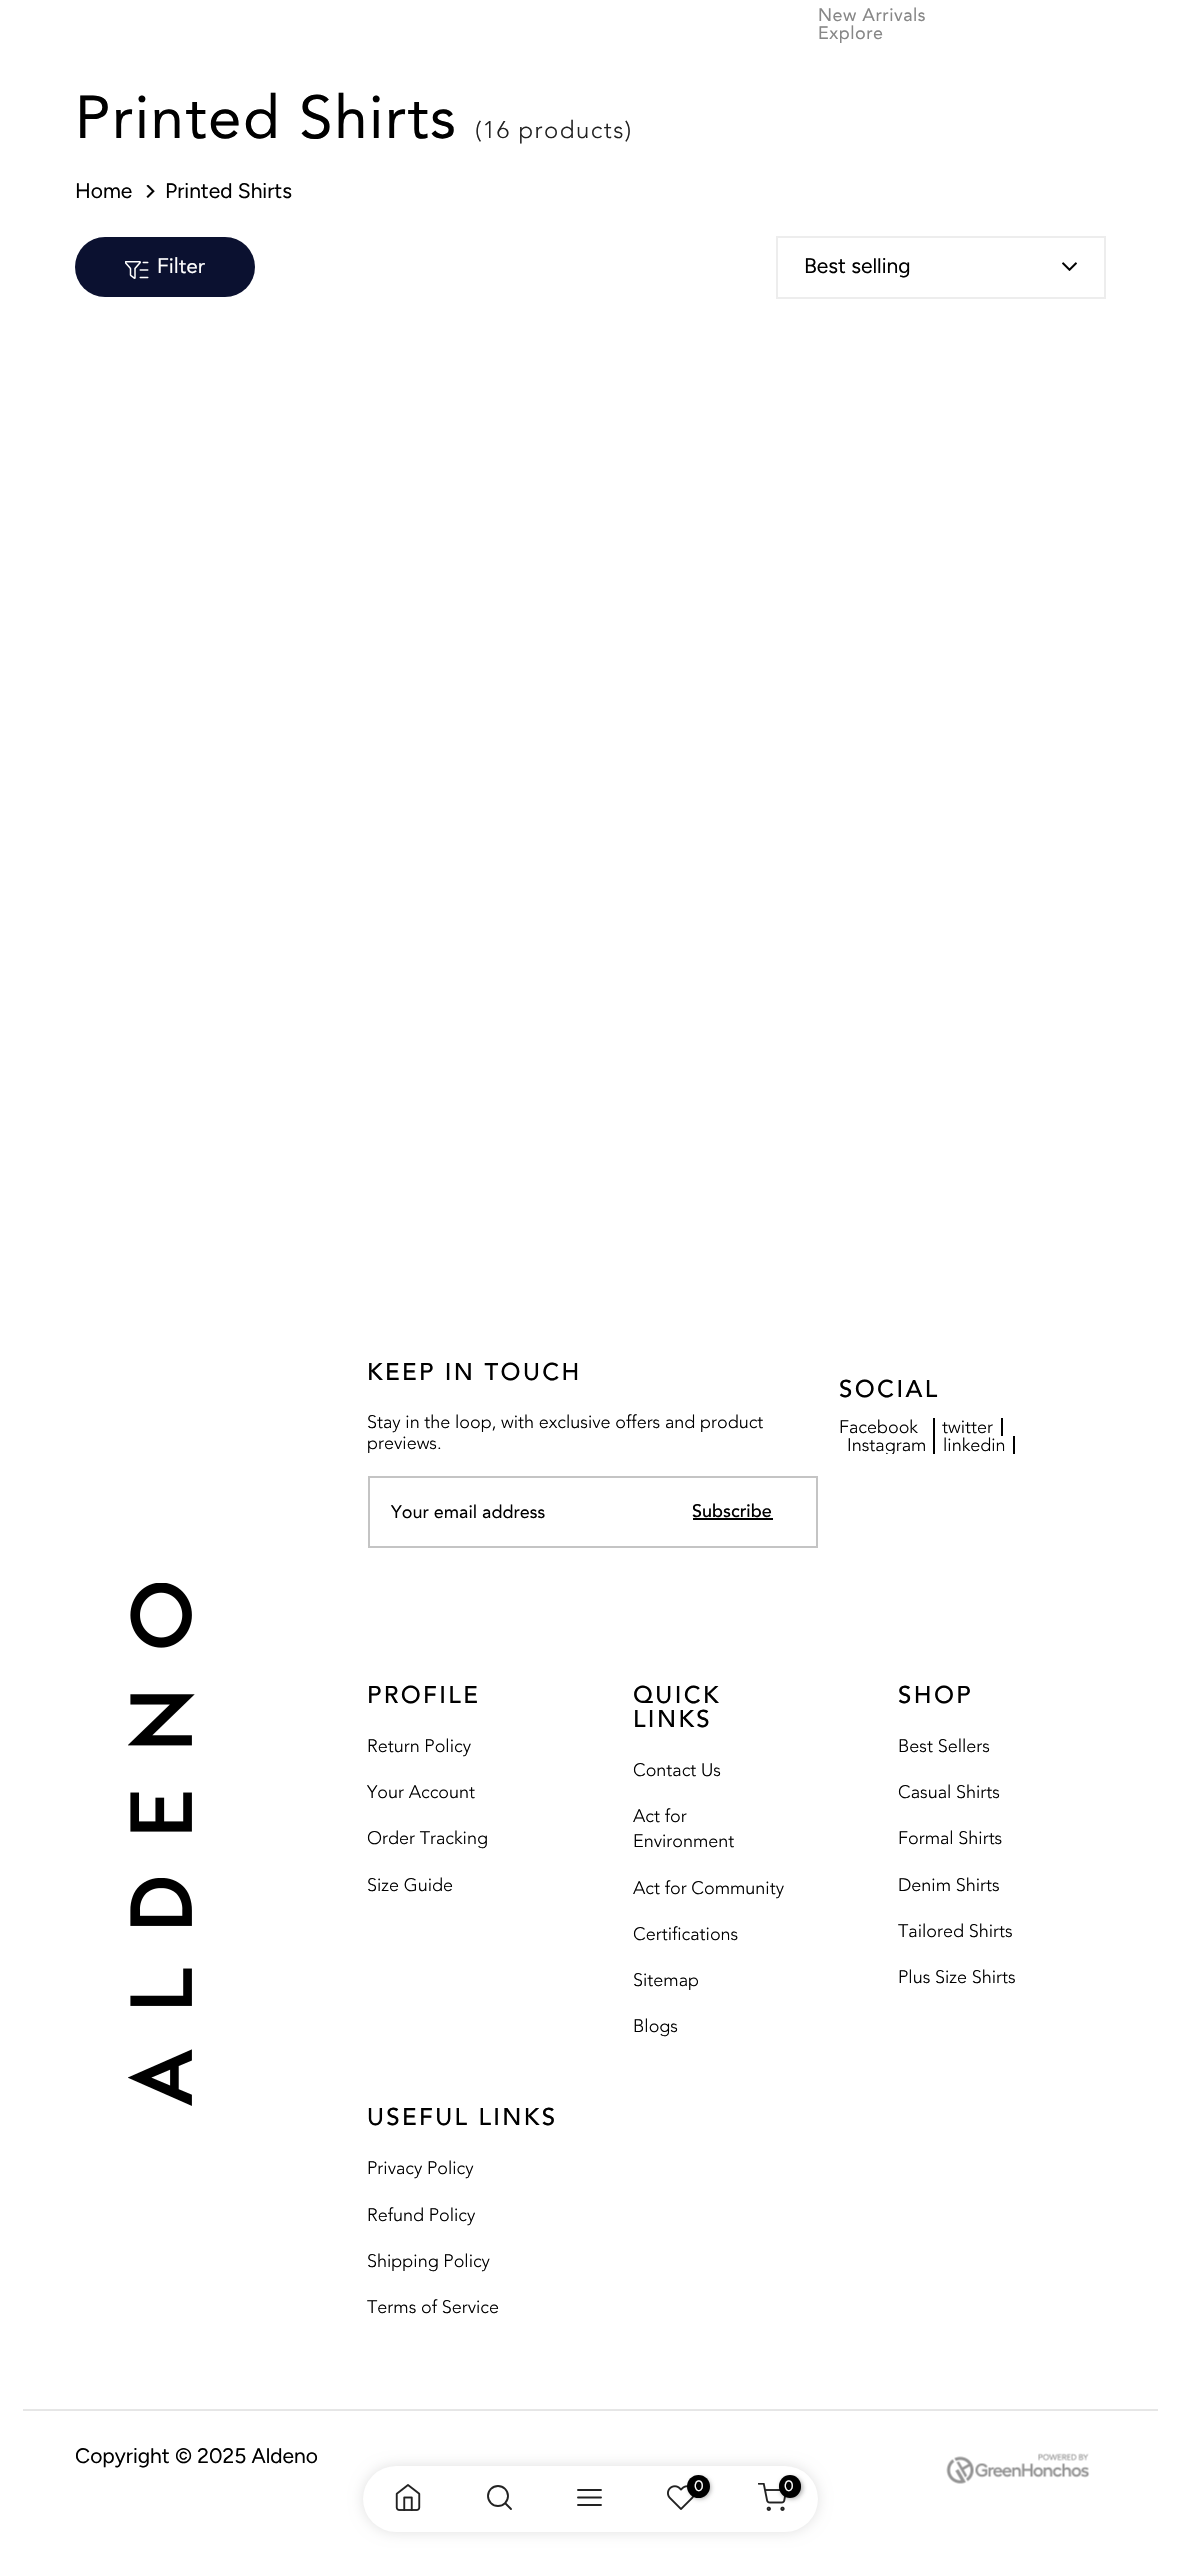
#include "include/core/SkBlurTypes.h"
#include "include/core/SkCanvas.h"
#include "include/core/SkData.h"
#include "include/core/SkFont.h"
#include "include/core/SkFontMgr.h"
#include "include/core/SkImage.h"
#include "include/core/SkMaskFilter.h"
#include "include/core/SkPaint.h"
#include "include/core/SkPathBuilder.h"
#include "include/core/SkTextBlob.h"
#include "include/effects/SkDashPathEffect.h"
#include "include/effects/SkGradientShader.h"
#include "include/utils/SkParsePath.h"

extern sk_sp<SkFontMgr> fontMgr;

static SkFont font(const char* family, int weight, float size, bool italic = false) {
    SkFontStyle style(weight, SkFontStyle::kNormal_Width,
        italic ? SkFontStyle::kItalic_Slant : SkFontStyle::kUpright_Slant);
    SkFont result(fontMgr->matchFamilyStyle(family, style), size);
    result.setSubpixel(true);
    return result;
}

static void drawLabel(SkCanvas* canvas, const char* s, float x, float y, const SkFont& font, SkColor color) {
    SkPaint ink(SkColor4f::FromColor(color));
    ink.setAntiAlias(true);
    canvas->drawString(s, x, y, font, ink);
}

static void drawTracked(SkCanvas* canvas, const char* s, float x, float y, const SkFont& font, const SkPaint& ink, float letter, float word) {
    std::vector<SkGlyphID> glyphs(font.countText(s, strlen(s), SkTextEncoding::kUTF8));
    std::vector<float> xs(glyphs.size());
    font.textToGlyphs(s, strlen(s), SkTextEncoding::kUTF8, glyphs);
    font.getXPos(glyphs, xs, x);
    float extra = 0;
    for (size_t i = 0; i < glyphs.size(); i++) {
        xs[i] += extra;
        extra += letter + word * (glyphs[i] == font.unicharToGlyph(' '));
    }
    canvas->drawTextBlob(SkTextBlob::MakeFromPosHGlyphs(glyphs, xs, y, font), 0, 0, ink);
}

static void fillRect(SkCanvas* canvas, float x, float y, float w, float h, SkColor color) {
    SkPaint ink(SkColor4f::FromColor(color));
    ink.setAntiAlias(true);
    canvas->drawRect(SkRect::MakeXYWH(x, y, w, h), ink);
}

static void fillRRect(SkCanvas* canvas, float x, float y, float w, float h, float radius, SkColor color) {
    SkPaint ink(SkColor4f::FromColor(color));
    ink.setAntiAlias(true);
    canvas->drawRoundRect(SkRect::MakeXYWH(x, y, w, h), radius, radius, ink);
}

static void drawPhoto(SkCanvas* canvas, const char* path, float x, float y, float w, float h) {
    auto image = SkImages::DeferredFromEncodedData(SkData::MakeFromFileName(path));
    canvas->drawImageRect(image, SkRect::MakeXYWH(x, y, w, h), SkSamplingOptions());
}

static SkPath parsePath(const char* data, bool evenOdd = false) {
    SkPath result = *SkParsePath::FromSVGString(data);
    if (evenOdd) result.setFillType(SkPathFillType::kEvenOdd);
    return result;
}

void draw(SkCanvas* canvas) {
    SkPaint paint;
    paint.setAntiAlias(true);
    canvas->clear(0xFFFFFFFF);
    SkFont font1 = font("Avenir", 400, 18);
    paint.setColor(0xFF878787);
    drawTracked(canvas, "New Arrivals", 818, 21, font1, paint, 0.5f, 0);
    drawTracked(canvas, "Explore", 818, 39, font1, paint, 0.5f, 0);
    SkFont font2 = font("Avenir", 400, 60);
    paint.setColor(0xFF000000);
    drawTracked(canvas, "Printed Shirts", 75, 138, font2, paint, 1.5f, 0);
    SkFont font3 = font("Avenir", 300, 24);
    paint.setColor(0xFF222222);
    drawTracked(canvas, "(16 products)", 475, 138, font3, paint, 1.5f, 0);
    SkFont font4 = font("Figtree", 400, 21);
    drawLabel(canvas, "Home", 75, 198, font4, 0xFF000000);
    drawPhoto(canvas, "assets/img1.png", 146, 185, 9, 13);
    drawLabel(canvas, "Printed Shirts", 165, 198, font4, 0xFF000000);
    fillRRect(canvas, 75, 237, 180, 60, 30, 0xFF0B1130);
    drawPhoto(canvas, "assets/img2.png", 125, 261, 24, 18);
    SkFont font5 = font("Avenir", 400, 21);
    drawLabel(canvas, "Filter", 157, 273, font5, 0xFFFFFFFF);
    paint.setStroke(true);
    paint.setStrokeWidth(2);
    paint.setColor(0xFFEDEDED);
    canvas->drawRect(SkRect::MakeXYWH(777, 237, 328, 61), paint);
    drawLabel(canvas, "Best selling", 804, 273, font4, 0xFF000000);
    drawPhoto(canvas, "assets/img3.png", 1062, 262, 15, 9);
    drawPhoto(canvas, "assets/img4.png", 128, 1583, 67, 523);
    SkFont font6 = font("Avenir", 500, 24);
    paint.setStroke(false);
    paint.setColor(0xFF000000);
    drawTracked(canvas, "KEEP IN TOUCH", 367, 1380, font6, paint, 2.4f, 0);
    SkFont font7 = font("Avenir", 300, 18);
    drawLabel(canvas, "Stay in the loop, with exclusive offers and product", 367, 1428, font7, 0xFF000000);
    drawLabel(canvas, "previews.", 367, 1449, font7, 0xFF000000);
    paint.setStroke(true);
    paint.setColor(0xFFC4C4C4);
    canvas->drawRect(SkRect::MakeXYWH(369, 1477, 448, 70), paint);
    drawLabel(canvas, "Your email address", 391, 1518, font1, 0xFF000000);
    SkFont font8 = font("Avenir", 500, 18);
    drawLabel(canvas, "Subscribe", 692, 1517, font8, 0xFF000000);
    fillRect(canvas, 693, 1518, 80, 2, 0xFF000000);
    paint.setStroke(false);
    paint.setColor(0xFF000000);
    drawTracked(canvas, "SOCIAL", 839, 1397, font6, paint, 2.4f, 0);
    fillRect(canvas, 933, 1418, 2, 36, 0xFF000000);
    drawLabel(canvas, "Facebook", 839, 1433, font7, 0xFF000000);
    fillRect(canvas, 1001, 1418, 2, 18, 0xFF000000);
    drawLabel(canvas, "twitter", 942, 1433, font7, 0xFF000000);
    canvas->save();
    canvas->clipRect(SkRect::MakeXYWH(840, 1436, 93, 18));
    drawLabel(canvas, "Instagram", 847, 1451, font7, 0xFF000000);
    canvas->restore();
    fillRect(canvas, 1013, 1436, 2, 18, 0xFF000000);
    drawLabel(canvas, "linkedin", 943, 1451, font7, 0xFF000000);
    drawTracked(canvas, "PROFILE", 367, 1703, font6, paint, 2.4f, 0);
    drawLabel(canvas, "Return Policy", 367, 1752, font7, 0xFF000000);
    drawLabel(canvas, "Your Account", 367, 1798, font7, 0xFF000000);
    drawLabel(canvas, "Order Tracking", 367, 1844, font7, 0xFF000000);
    drawLabel(canvas, "Size Guide", 367, 1891, font7, 0xFF000000);
    drawTracked(canvas, "QUICK", 633, 1703, font6, paint, 2.4f, 0);
    drawTracked(canvas, "LINKS", 633, 1727, font6, paint, 2.4f, 0);
    drawLabel(canvas, "Contact Us", 633, 1776, font7, 0xFF000000);
    drawLabel(canvas, "Act for", 633, 1822, font7, 0xFF000000);
    drawLabel(canvas, "Environment", 633, 1847, font7, 0xFF000000);
    drawLabel(canvas, "Act for Community", 633, 1894, font7, 0xFF000000);
    drawLabel(canvas, "Certifications", 633, 1940, font7, 0xFF000000);
    drawLabel(canvas, "Sitemap", 633, 1986, font7, 0xFF000000);
    drawLabel(canvas, "Blogs", 633, 2032, font7, 0xFF000000);
    drawTracked(canvas, "SHOP", 898, 1703, font6, paint, 2.4f, 0);
    drawLabel(canvas, "Best Sellers", 898, 1752, font7, 0xFF000000);
    drawLabel(canvas, "Casual Shirts", 898, 1798, font7, 0xFF000000);
    drawLabel(canvas, "Formal Shirts", 898, 1844, font7, 0xFF000000);
    drawLabel(canvas, "Denim Shirts", 898, 1891, font7, 0xFF000000);
    drawLabel(canvas, "Tailored Shirts", 898, 1937, font7, 0xFF000000);
    drawLabel(canvas, "Plus Size Shirts", 898, 1983, font7, 0xFF000000);
    drawTracked(canvas, "USEFUL LINKS", 367, 2125, font6, paint, 2.4f, 0);
    drawLabel(canvas, "Privacy Policy", 367, 2174, font7, 0xFF000000);
    drawLabel(canvas, "Refund Policy", 367, 2221, font7, 0xFF000000);
    drawLabel(canvas, "Shipping Policy", 367, 2267, font7, 0xFF000000);
    drawLabel(canvas, "Terms of Service", 367, 2313, font7, 0xFF000000);
    fillRect(canvas, 23, 2409, 1135, 2, 0xFFE6E6E6);
    drawLabel(canvas, "Copyright © 2025 Aldeno", 75, 2463, font4, 0xFF000000);
    drawPhoto(canvas, "assets/img5.png", 946, 2453, 144, 31);
    paint.setColor(0x1F000000);
    paint.setMaskFilter(SkMaskFilter::MakeBlur(kNormal_SkBlurStyle, 7));
    canvas->drawRoundRect(SkRect::MakeXYWH(363, 2466, 455, 66), 33, 33, paint);
    paint.setMaskFilter(nullptr);
    fillRRect(canvas, 363, 2466, 455, 66, 33, 0xFFFFFFFF);
    drawPhoto(canvas, "assets/img6.png", 395, 2484, 26, 27);
    paint.setStroke(true);
    paint.setStrokeWidth(1.9f);
    paint.setColor(0xFF222222);
    canvas->drawCircle(498, 2496, 10, paint);
    paint.setStrokeCap(SkPaint::kRound_Cap);
    paint.setStrokeJoin(SkPaint::kRound_Join);
    canvas->drawPath(parsePath("M511 2509L505.5 2503.5"), paint);
    canvas->drawPath(parsePath("M578 2497.5H601M578 2490H601M578 2505H601"), paint);
    drawPhoto(canvas, "assets/img7.png", 667, 2485, 27, 25);
    paint.setStroke(false);
    paint.setColor(0x4D000000);
    paint.setMaskFilter(SkMaskFilter::MakeBlur(kNormal_SkBlurStyle, 2));
    canvas->drawRoundRect(SkRect::MakeXYWH(689, 2477, 22, 22), 11, 11, paint);
    paint.setMaskFilter(nullptr);
    paint.setColor(0xFF000000);
    canvas->drawCircle(698.5f, 2486.5f, 11.5f, paint);
    SkFont font9 = font("Figtree", 400, 15);
    drawLabel(canvas, "0", 694, 2491, font9, 0xFFFFFFFF);
    drawPhoto(canvas, "assets/img8.png", 758, 2483, 28, 28);
    paint.setColor(0x4D000000);
    paint.setMaskFilter(SkMaskFilter::MakeBlur(kNormal_SkBlurStyle, 2));
    canvas->drawRoundRect(SkRect::MakeXYWH(780, 2477, 23, 22), 11, 11, paint);
    paint.setMaskFilter(nullptr);
    fillRRect(canvas, 779, 2475, 22, 23, 11, 0xFF000000);
    drawLabel(canvas, "0", 784, 2491, font9, 0xFFFFFFFF);
}
